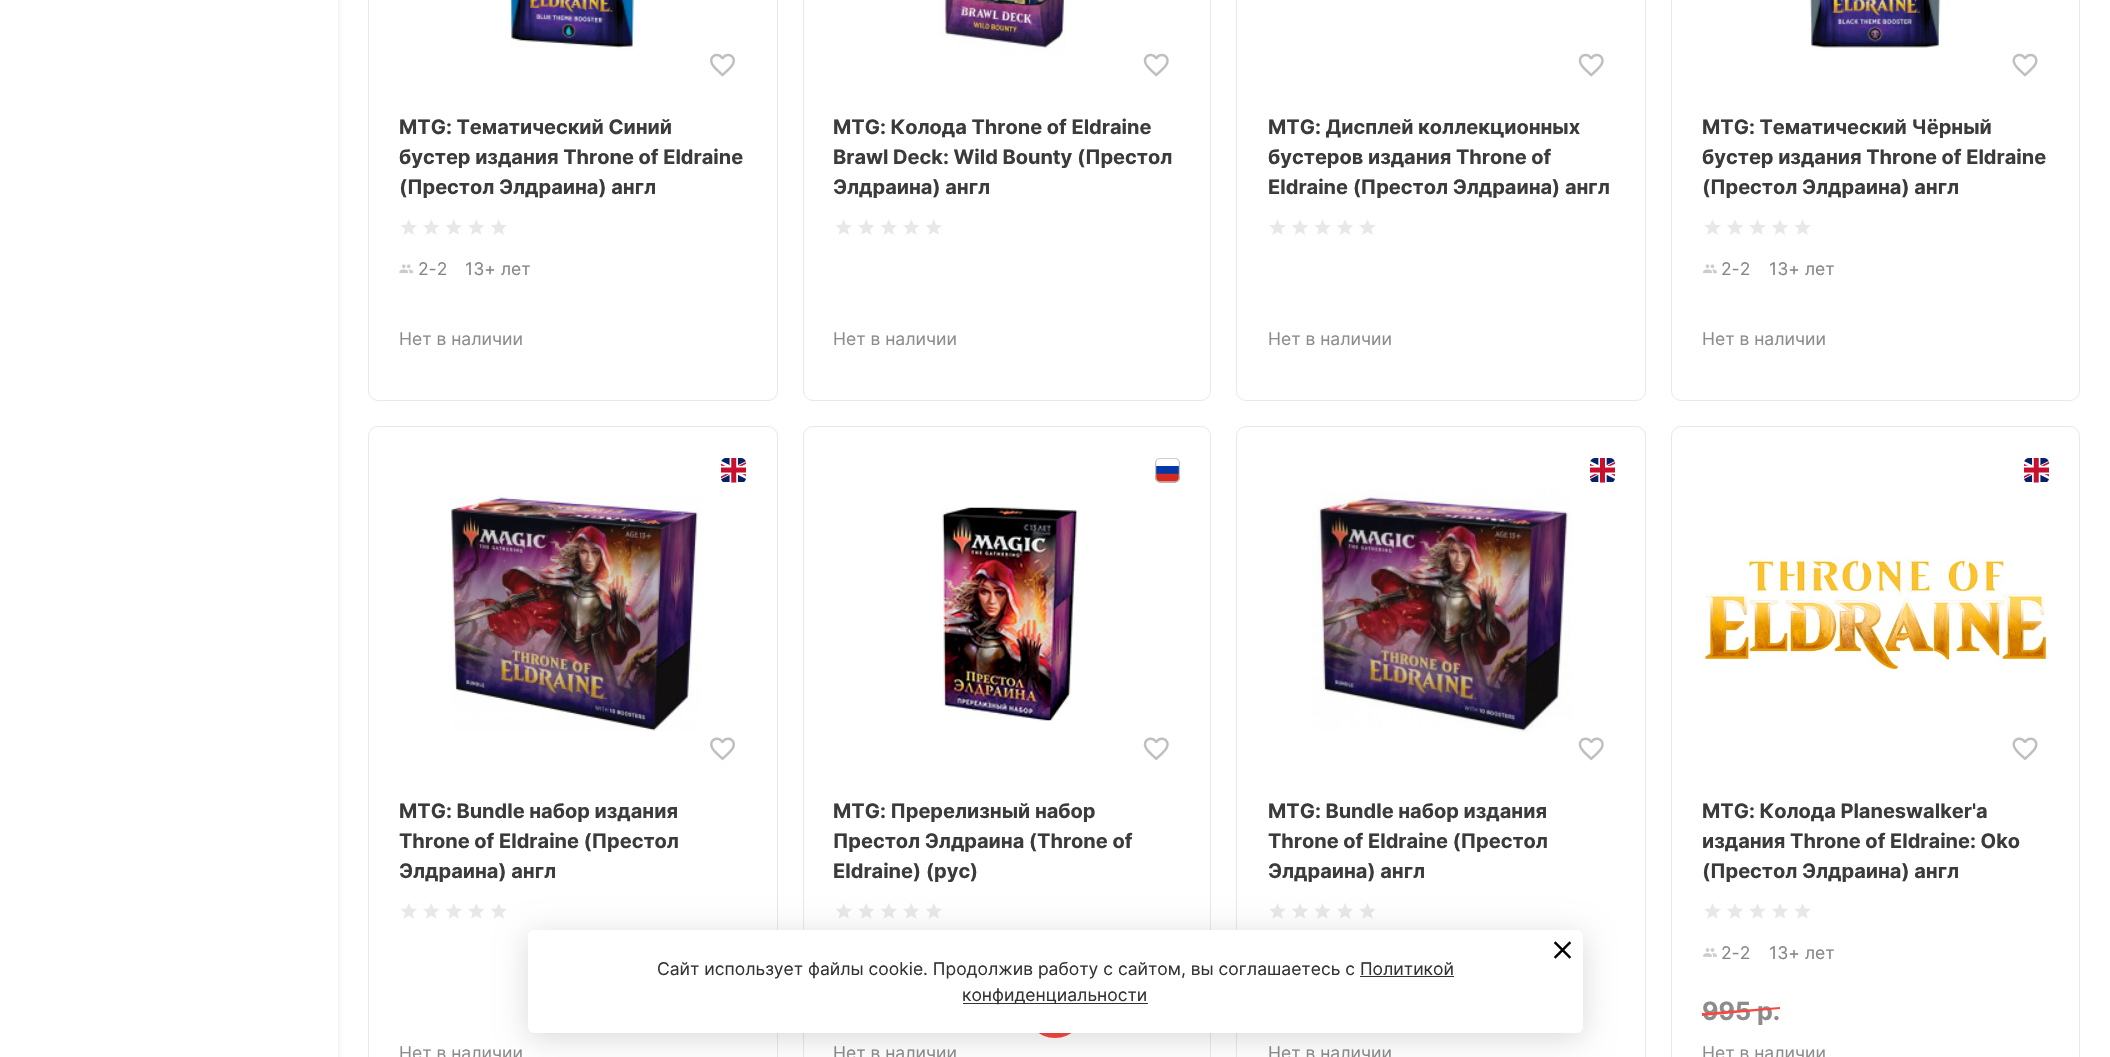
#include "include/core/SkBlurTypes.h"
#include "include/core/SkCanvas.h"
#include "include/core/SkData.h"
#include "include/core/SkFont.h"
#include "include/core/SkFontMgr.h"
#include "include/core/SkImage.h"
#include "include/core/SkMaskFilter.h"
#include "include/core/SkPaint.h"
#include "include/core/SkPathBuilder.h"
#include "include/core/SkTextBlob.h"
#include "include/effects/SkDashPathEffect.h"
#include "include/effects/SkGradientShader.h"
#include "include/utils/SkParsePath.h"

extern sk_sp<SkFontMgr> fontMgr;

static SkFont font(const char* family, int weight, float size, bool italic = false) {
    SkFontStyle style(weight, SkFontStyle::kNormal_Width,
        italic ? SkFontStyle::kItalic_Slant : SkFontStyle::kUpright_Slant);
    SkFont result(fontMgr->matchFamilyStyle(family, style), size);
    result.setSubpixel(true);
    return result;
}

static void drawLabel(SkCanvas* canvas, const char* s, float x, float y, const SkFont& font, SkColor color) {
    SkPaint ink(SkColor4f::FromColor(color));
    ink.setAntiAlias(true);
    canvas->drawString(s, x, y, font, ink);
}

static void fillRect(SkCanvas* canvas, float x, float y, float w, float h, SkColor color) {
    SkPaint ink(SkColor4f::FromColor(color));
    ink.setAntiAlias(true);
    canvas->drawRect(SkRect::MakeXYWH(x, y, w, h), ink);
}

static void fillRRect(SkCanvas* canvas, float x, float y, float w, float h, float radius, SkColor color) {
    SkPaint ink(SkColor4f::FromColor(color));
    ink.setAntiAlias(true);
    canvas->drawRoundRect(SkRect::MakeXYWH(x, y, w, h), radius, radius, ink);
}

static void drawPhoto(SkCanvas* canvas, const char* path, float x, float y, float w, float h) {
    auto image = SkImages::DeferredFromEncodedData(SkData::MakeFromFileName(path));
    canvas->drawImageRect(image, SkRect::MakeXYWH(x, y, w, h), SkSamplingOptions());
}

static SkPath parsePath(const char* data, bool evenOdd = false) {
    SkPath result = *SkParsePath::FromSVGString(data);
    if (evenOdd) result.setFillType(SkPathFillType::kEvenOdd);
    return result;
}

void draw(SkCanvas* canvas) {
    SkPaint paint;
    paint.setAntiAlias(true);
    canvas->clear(0xFFFFFFFF);
    canvas->save();
    canvas->clipPath(parsePath("M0 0H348V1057H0ZM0-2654H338V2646H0Z", true), true);
    paint.setColor(0x1A121316);
    paint.setMaskFilter(SkMaskFilter::MakeBlur(kNormal_SkBlurStyle, 3));
    canvas->drawRect(SkRect::MakeXYWH(0, -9, 338, 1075), paint);
    paint.setMaskFilter(nullptr);
    canvas->restore();
    paint.setStroke(true);
    paint.setStrokeWidth(1);
    paint.setColor(0xFFE8E8E8);
    canvas->drawRoundRect(SkRect::MakeXYWH(368.5f, -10.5f, 409, 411), 9.5f, 9.5f, paint);
    drawPhoto(canvas, "assets/img1.png", 510, 0, 125, 50);
    drawPhoto(canvas, "assets/img2.png", 710, 53, 25, 24);
    SkFont font1 = font("Inter", 700, 20);
    drawLabel(canvas, "MTG: Тематический Синий", 399, 134, font1, 0xFF3B3B3B);
    drawLabel(canvas, "бустер издания Throne of Eldraine", 399, 164, font1, 0xFF3B3B3B);
    drawLabel(canvas, "(Престол Элдраина) англ", 399, 194, font1, 0xFF3B3B3B);
    drawPhoto(canvas, "assets/img3.png", 401, 219, 16, 16);
    drawPhoto(canvas, "assets/img4.png", 423, 219, 16, 16);
    drawPhoto(canvas, "assets/img3.png", 446, 219, 16, 16);
    drawPhoto(canvas, "assets/img4.png", 468, 219, 16, 16);
    drawPhoto(canvas, "assets/img3.png", 491, 219, 16, 16);
    drawPhoto(canvas, "assets/img5.png", 399, 264, 15, 10);
    SkFont font2 = font("Inter", 400, 17.5f);
    drawLabel(canvas, "2-2", 418, 275, font2, 0xFF868686);
    drawLabel(canvas, "13+ лет", 465, 275, font2, 0xFF868686);
    drawLabel(canvas, "Нет в наличии", 399, 345, font2, 0xFF8C8C8C);
    canvas->drawRoundRect(SkRect::MakeXYWH(803.5f, -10.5f, 407, 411), 9.5f, 9.5f, paint);
    drawPhoto(canvas, "assets/img6.png", 939, 0, 127, 54);
    drawPhoto(canvas, "assets/img7.png", 1143, 53, 26, 24);
    drawLabel(canvas, "MTG: Колода Throne of Eldraine", 833, 134, font1, 0xFF3B3B3B);
    drawLabel(canvas, "Brawl Deck: Wild Bounty (Престол", 833, 164, font1, 0xFF3B3B3B);
    drawLabel(canvas, "Элдраина) англ", 833, 194, font1, 0xFF3B3B3B);
    drawPhoto(canvas, "assets/img3.png", 836, 219, 16, 16);
    drawPhoto(canvas, "assets/img4.png", 858, 219, 16, 16);
    drawPhoto(canvas, "assets/img3.png", 881, 219, 16, 16);
    drawPhoto(canvas, "assets/img4.png", 903, 219, 16, 16);
    drawPhoto(canvas, "assets/img3.png", 926, 219, 16, 16);
    drawLabel(canvas, "Нет в наличии", 833, 345, font2, 0xFF8C8C8C);
    canvas->drawRoundRect(SkRect::MakeXYWH(1236.5f, -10.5f, 409, 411), 9.5f, 9.5f, paint);
    drawPhoto(canvas, "assets/img7.png", 1578, 53, 26, 24);
    drawLabel(canvas, "MTG: Дисплей коллекционных", 1268, 134, font1, 0xFF3B3B3B);
    drawLabel(canvas, "бустеров издания Throne of", 1268, 164, font1, 0xFF3B3B3B);
    drawLabel(canvas, "Eldraine (Престол Элдраина) англ", 1268, 194, font1, 0xFF3B3B3B);
    drawPhoto(canvas, "assets/img8.png", 1269, 219, 17, 16);
    drawPhoto(canvas, "assets/img9.png", 1292, 220, 16, 15);
    drawPhoto(canvas, "assets/img8.png", 1314, 219, 17, 16);
    drawPhoto(canvas, "assets/img9.png", 1337, 220, 16, 15);
    drawPhoto(canvas, "assets/img8.png", 1359, 219, 17, 16);
    drawLabel(canvas, "Нет в наличии", 1268, 345, font2, 0xFF8C8C8C);
    canvas->drawRoundRect(SkRect::MakeXYWH(1671.5f, -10.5f, 408, 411), 9.5f, 9.5f, paint);
    drawPhoto(canvas, "assets/img10.png", 1809, 0, 132, 49);
    drawPhoto(canvas, "assets/img11.png", 2012, 53, 26, 24);
    drawLabel(canvas, "MTG: Тематический Чёрный", 1702, 134, font1, 0xFF3B3B3B);
    drawLabel(canvas, "бустер издания Throne of Eldraine", 1702, 164, font1, 0xFF3B3B3B);
    drawLabel(canvas, "(Престол Элдраина) англ", 1702, 194, font1, 0xFF3B3B3B);
    drawPhoto(canvas, "assets/img8.png", 1704, 219, 17, 16);
    drawPhoto(canvas, "assets/img9.png", 1727, 220, 16, 15);
    drawPhoto(canvas, "assets/img8.png", 1749, 219, 17, 16);
    drawPhoto(canvas, "assets/img9.png", 1772, 220, 16, 15);
    drawPhoto(canvas, "assets/img8.png", 1794, 219, 17, 16);
    drawPhoto(canvas, "assets/img12.png", 1703, 264, 14, 10);
    drawLabel(canvas, "2-2", 1721, 275, font2, 0xFF868686);
    drawLabel(canvas, "13+ лет", 1769, 275, font2, 0xFF868686);
    drawLabel(canvas, "Нет в наличии", 1702, 345, font2, 0xFF8C8C8C);
    canvas->drawRoundRect(SkRect::MakeXYWH(368.5f, 426.5f, 409, 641), 9.5f, 9.5f, paint);
    drawPhoto(canvas, "assets/img13.png", 721, 458, 25, 25);
    drawPhoto(canvas, "assets/img14.png", 451, 494, 250, 237);
    drawPhoto(canvas, "assets/img15.png", 710, 737, 25, 24);
    drawLabel(canvas, "MTG: Bundle набор издания", 399, 818, font1, 0xFF3B3B3B);
    drawLabel(canvas, "Throne of Eldraine (Престол", 399, 848, font1, 0xFF3B3B3B);
    drawLabel(canvas, "Элдраина) англ", 399, 878, font1, 0xFF3B3B3B);
    drawPhoto(canvas, "assets/img16.png", 401, 903, 16, 16);
    drawPhoto(canvas, "assets/img17.png", 423, 903, 16, 16);
    drawPhoto(canvas, "assets/img16.png", 446, 903, 16, 16);
    drawPhoto(canvas, "assets/img17.png", 468, 903, 16, 16);
    drawPhoto(canvas, "assets/img16.png", 491, 903, 16, 16);
    drawLabel(canvas, "Нет в наличии", 399, 1059, font2, 0xFF8C8C8C);
    canvas->drawRoundRect(SkRect::MakeXYWH(803.5f, 426.5f, 407, 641), 9.5f, 9.5f, paint);
    drawPhoto(canvas, "assets/img18.png", 1155, 458, 25, 25);
    drawPhoto(canvas, "assets/img19.png", 940, 507, 140, 214);
    drawPhoto(canvas, "assets/img20.png", 1143, 737, 26, 24);
    drawLabel(canvas, "MTG: Пререлизный набор", 833, 818, font1, 0xFF3B3B3B);
    drawLabel(canvas, "Престол Элдраина (Throne of", 833, 848, font1, 0xFF3B3B3B);
    drawLabel(canvas, "Eldraine) (рус)", 833, 878, font1, 0xFF3B3B3B);
    drawPhoto(canvas, "assets/img16.png", 836, 903, 16, 16);
    drawPhoto(canvas, "assets/img17.png", 858, 903, 16, 16);
    drawPhoto(canvas, "assets/img16.png", 881, 903, 16, 16);
    drawPhoto(canvas, "assets/img17.png", 903, 903, 16, 16);
    drawPhoto(canvas, "assets/img16.png", 926, 903, 16, 16);
    drawLabel(canvas, "Нет в наличии", 833, 1059, font2, 0xFF8C8C8C);
    canvas->drawRoundRect(SkRect::MakeXYWH(1236.5f, 426.5f, 409, 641), 9.5f, 9.5f, paint);
    drawPhoto(canvas, "assets/img21.png", 1590, 458, 25, 25);
    drawPhoto(canvas, "assets/img22.png", 1312, 489, 259, 244);
    drawPhoto(canvas, "assets/img20.png", 1578, 737, 26, 24);
    drawLabel(canvas, "MTG: Bundle набор издания", 1268, 818, font1, 0xFF3B3B3B);
    drawLabel(canvas, "Throne of Eldraine (Престол", 1268, 848, font1, 0xFF3B3B3B);
    drawLabel(canvas, "Элдраина) англ", 1268, 878, font1, 0xFF3B3B3B);
    drawPhoto(canvas, "assets/img23.png", 1269, 903, 17, 16);
    drawPhoto(canvas, "assets/img24.png", 1292, 903, 16, 16);
    drawPhoto(canvas, "assets/img23.png", 1314, 903, 17, 16);
    drawPhoto(canvas, "assets/img24.png", 1337, 903, 16, 16);
    drawPhoto(canvas, "assets/img23.png", 1359, 903, 17, 16);
    drawLabel(canvas, "Нет в наличии", 1268, 1059, font2, 0xFF8C8C8C);
    canvas->drawRoundRect(SkRect::MakeXYWH(1671.5f, 426.5f, 408, 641), 9.5f, 9.5f, paint);
    drawPhoto(canvas, "assets/img25.png", 2024, 458, 25, 25);
    drawPhoto(canvas, "assets/img26.png", 1702, 556, 347, 116);
    drawPhoto(canvas, "assets/img27.png", 2012, 737, 26, 24);
    drawLabel(canvas, "MTG: Колода Planeswalker'а", 1702, 818, font1, 0xFF3B3B3B);
    drawLabel(canvas, "издания Throne of Eldraine: Oko", 1702, 848, font1, 0xFF3B3B3B);
    drawLabel(canvas, "(Престол Элдраина) англ", 1702, 878, font1, 0xFF3B3B3B);
    drawPhoto(canvas, "assets/img23.png", 1704, 903, 17, 16);
    drawPhoto(canvas, "assets/img24.png", 1727, 903, 16, 16);
    drawPhoto(canvas, "assets/img23.png", 1749, 903, 17, 16);
    drawPhoto(canvas, "assets/img24.png", 1772, 903, 16, 16);
    drawPhoto(canvas, "assets/img23.png", 1794, 903, 17, 16);
    drawPhoto(canvas, "assets/img28.png", 1703, 948, 14, 9);
    drawLabel(canvas, "2-2", 1721, 959, font2, 0xFF868686);
    drawLabel(canvas, "13+ лет", 1769, 959, font2, 0xFF868686);
    SkFont font3 = font("Inter", 700, 25);
    drawLabel(canvas, "995 р.", 1702, 1020, font3, 0xFF8C8C8C);
    paint.setStroke(false);
    paint.setColor(0xFFF84842);
    canvas->drawPath(parsePath("M1702 1013L1780 1007V1009L1702 1016Z"), paint);
    drawLabel(canvas, "Нет в наличии", 1702, 1059, font2, 0xFF8C8C8C);
    canvas->drawCircle(1055, 1008, 30, paint);
    paint.setColor(0x26000000);
    paint.setMaskFilter(SkMaskFilter::MakeBlur(kNormal_SkBlurStyle, 15.5f));
    canvas->drawRoundRect(SkRect::MakeXYWH(528, 935, 1055, 103), 6, 6, paint);
    paint.setMaskFilter(nullptr);
    fillRRect(canvas, 528, 930, 1055, 103, 6, 0xFFFFFFFF);
    drawPhoto(canvas, "assets/img29.png", 1553, 941, 19, 18);
    drawLabel(canvas, "Сайт использует файлы cookie. Продолжив работу с сайтом, вы соглашаетесь с Политикой", 657, 975, font2, 0xFF333333);
    fillRect(canvas, 963, 1003, 185, 1, 0xFF333333);
    drawLabel(canvas, "конфиденциальности", 962, 1001, font2, 0xFF333333);
    fillRect(canvas, 1360, 976, 94, 1, 0xFF333333);
}
